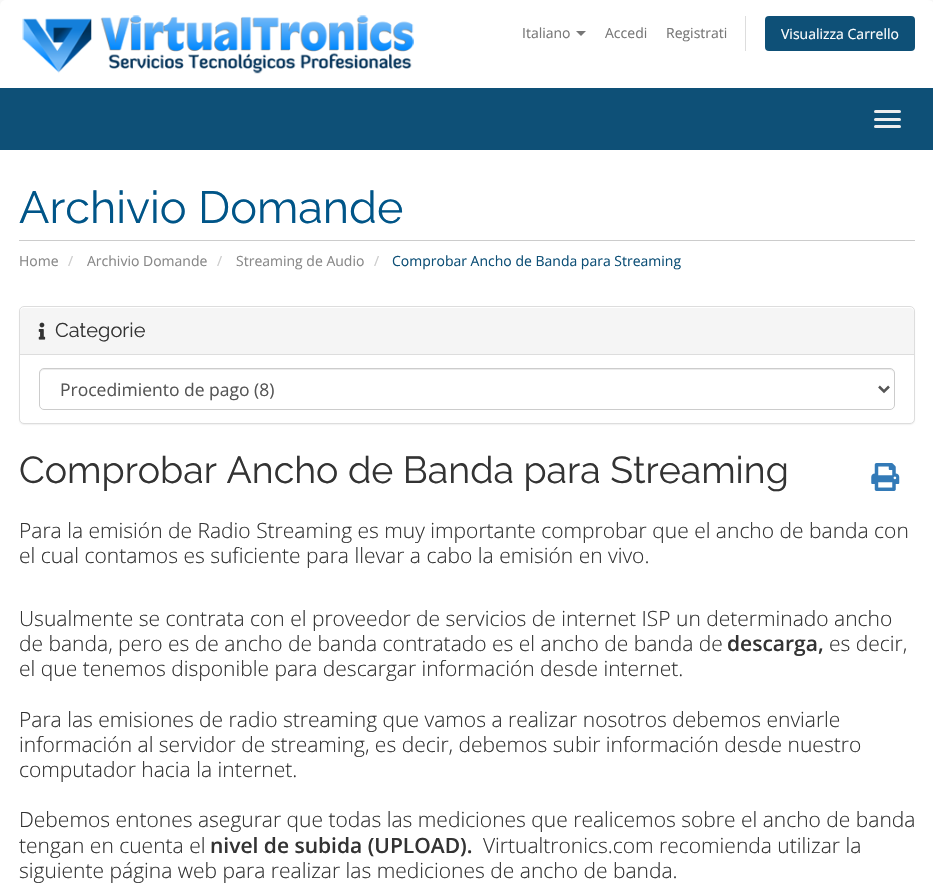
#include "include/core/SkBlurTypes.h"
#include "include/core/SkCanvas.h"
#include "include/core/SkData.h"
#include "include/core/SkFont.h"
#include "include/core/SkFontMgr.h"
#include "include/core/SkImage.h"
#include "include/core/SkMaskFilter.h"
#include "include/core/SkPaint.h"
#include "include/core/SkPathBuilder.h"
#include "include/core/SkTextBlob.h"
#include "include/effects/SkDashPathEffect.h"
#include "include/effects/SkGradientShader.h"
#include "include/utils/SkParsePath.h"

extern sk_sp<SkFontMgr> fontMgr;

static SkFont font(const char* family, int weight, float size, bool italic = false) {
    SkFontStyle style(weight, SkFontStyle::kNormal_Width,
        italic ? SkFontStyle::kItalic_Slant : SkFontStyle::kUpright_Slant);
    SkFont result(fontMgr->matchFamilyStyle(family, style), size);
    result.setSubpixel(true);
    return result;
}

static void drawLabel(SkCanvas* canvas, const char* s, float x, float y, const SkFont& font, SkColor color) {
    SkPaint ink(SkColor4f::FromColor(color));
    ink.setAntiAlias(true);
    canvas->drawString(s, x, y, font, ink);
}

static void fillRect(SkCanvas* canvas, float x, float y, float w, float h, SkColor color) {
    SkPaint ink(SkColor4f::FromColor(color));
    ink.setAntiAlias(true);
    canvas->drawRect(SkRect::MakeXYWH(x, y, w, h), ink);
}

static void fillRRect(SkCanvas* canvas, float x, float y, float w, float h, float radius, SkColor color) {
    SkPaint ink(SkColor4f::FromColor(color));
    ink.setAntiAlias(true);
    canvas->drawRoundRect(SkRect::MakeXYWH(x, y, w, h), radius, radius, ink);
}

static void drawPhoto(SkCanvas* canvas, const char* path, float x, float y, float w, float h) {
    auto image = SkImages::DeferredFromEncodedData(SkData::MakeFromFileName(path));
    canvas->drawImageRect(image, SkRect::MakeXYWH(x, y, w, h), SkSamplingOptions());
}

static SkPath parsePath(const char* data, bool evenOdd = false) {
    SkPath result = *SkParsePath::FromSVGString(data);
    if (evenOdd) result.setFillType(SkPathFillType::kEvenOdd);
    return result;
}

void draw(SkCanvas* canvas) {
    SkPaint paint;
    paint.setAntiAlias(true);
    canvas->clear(0xFFF8F8F8);
    paint.setColor(0xFFFFFFFF);
    canvas->drawPath(parsePath("M6 0H928C931.5 0 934 2.5 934 6V88H0V6C0 2.5 2.5 0 6 0Z"), paint);
    drawPhoto(canvas, "assets/img1.png", 22, 15, 392, 59);
    SkFont font1 = font("Open Sans", 400, 14);
    drawLabel(canvas, "Italiano", 522, 38, font1, 0xFF777777);
    paint.setColor(0xFF777777);
    canvas->drawPath(parsePath("M576 31H586L581 36Z"), paint);
    drawLabel(canvas, "Accedi", 605, 38, font1, 0xFF777777);
    drawLabel(canvas, "Registrati", 666, 38, font1, 0xFF777777);
    fillRect(canvas, 745, 16, 1, 35, 0xFFDDDDDD);
    fillRRect(canvas, 765, 16, 150, 35, 4, 0xFF0E5077);
    drawLabel(canvas, "Visualizza Carrello", 781, 39, font1, 0xFFFFFFFF);
    fillRect(canvas, 0, 88, 933, 62, 0xFF0E5077);
    fillRRect(canvas, 874, 110, 27, 3, 1.5f, 0xFFEEEEEE);
    fillRRect(canvas, 874, 118, 27, 3, 1.5f, 0xFFEEEEEE);
    fillRRect(canvas, 874, 125, 27, 3, 1.5f, 0xFFEEEEEE);
    fillRect(canvas, 0, 150, 933, 738, 0xFFFFFFFF);
    fillRect(canvas, 19, 240, 896, 1, 0xFFCCCCCC);
    SkFont font2 = font("Raleway", 400, 45);
    drawLabel(canvas, "Archivio Domande", 19, 223, font2, 0xFF005588);
    drawLabel(canvas, "Home", 19, 266, font1, 0xFF888888);
    drawLabel(canvas, "/", 68, 266, font1, 0xFFCCCCCC);
    drawLabel(canvas, "Archivio Domande", 87, 266, font1, 0xFF888888);
    drawLabel(canvas, "/", 217, 266, font1, 0xFFCCCCCC);
    drawLabel(canvas, "Streaming de Audio", 236, 266, font1, 0xFF888888);
    drawLabel(canvas, "/", 374, 266, font1, 0xFFCCCCCC);
    drawLabel(canvas, "Comprobar Ancho de Banda para Streaming", 392, 266, font1, 0xFF0E5077);
    paint.setColor(0x0D000000);
    paint.setMaskFilter(SkMaskFilter::MakeBlur(kNormal_SkBlurStyle, 0.5f));
    canvas->drawRoundRect(SkRect::MakeXYWH(19, 308, 896, 117), 5, 5, paint);
    paint.setMaskFilter(nullptr);
    paint.setColor(0xFFFFFFFF);
    canvas->drawRoundRect(SkRect::MakeXYWH(19.5f, 306.5f, 895, 117), 4.5f, 4.5f, paint);
    paint.setStroke(true);
    paint.setStrokeWidth(1);
    paint.setColor(0xFFDDDDDD);
    canvas->drawRoundRect(SkRect::MakeXYWH(19.5f, 306.5f, 895, 117), 4.5f, 4.5f, paint);
    paint.setStroke(false);
    paint.setColor(0xFFF5F5F5);
    canvas->drawPath(parsePath("M24 308H910C912 308 914 310 914 312V355H20V312C20 310 22 308 24 308Z"), paint);
    fillRect(canvas, 20, 354, 894, 1, 0xFFDDDDDD);
    drawPhoto(canvas, "assets/img2.png", 38, 322, 8, 18);
    SkFont font3 = font("Raleway", 400, 20);
    drawLabel(canvas, "Categorie", 55, 337, font3, 0xFF333333);
    paint.setColor(0xFFECECEC);
    canvas->drawPath(parsePath("M44 370H890C892 370 894 372 894 374C894 371 893 369 890 369H44C41 369 40 371 40 374C40 372 42 370 44 370Z"), paint);
    paint.setStroke(true);
    paint.setColor(0xFFCCCCCC);
    canvas->drawRoundRect(SkRect::MakeXYWH(39.5f, 368.5f, 855, 41), 4.5f, 4.5f, paint);
    paint.setStrokeWidth(2.5f);
    paint.setColor(0xFF555555);
    canvas->drawPath(parsePath("M879 386.5L884 391.5L889 386.5"), paint);
    SkFont font4 = font("Open Sans", 400, 17.5f);
    drawLabel(canvas, "Procedimiento de pago (8)", 60, 396, font4, 0xFF555555);
    SkFont font5 = font("Raleway", 400, 37.5f);
    drawLabel(canvas, "Comprobar Ancho de Banda para Streaming", 19, 483, font5, 0xFF333333);
    drawPhoto(canvas, "assets/img3.png", 871, 463, 29, 28);
    SkFont font6 = font("Open Sans", 300, 21);
    drawLabel(canvas, "Para la emisión de Radio Streaming es muy importante comprobar que el ancho de banda con", 19, 538, font6, 0xFF333333);
    drawLabel(canvas, "el cual contamos es suficiente para llevar a cabo la emisión en vivo.", 19, 563, font6, 0xFF333333);
    drawLabel(canvas, "Usualmente se contrata con el proveedor de servicios de internet ISP un determinado ancho", 19, 626, font6, 0xFF333333);
    drawLabel(canvas, "de banda, pero es de ancho de banda contratado es el ancho de banda de", 19, 651, font6, 0xFF333333);
    SkFont font7 = font("Open Sans", 600, 21);
    drawLabel(canvas, "descarga,", 727, 651, font7, 0xFF333333);
    drawLabel(canvas, "es decir,", 829, 651, font6, 0xFF333333);
    drawLabel(canvas, "el que tenemos disponible para descargar información desde internet.", 19, 676, font6, 0xFF333333);
    drawLabel(canvas, "Para las emisiones de radio streaming que vamos a realizar nosotros debemos enviarle", 19, 727, font6, 0xFF333333);
    drawLabel(canvas, "información al servidor de streaming, es decir, debemos subir información desde nuestro", 19, 752, font6, 0xFF333333);
    drawLabel(canvas, "computador hacia la internet.", 19, 777, font6, 0xFF333333);
    drawLabel(canvas, "Debemos entones asegurar que todas las mediciones que realicemos sobre el ancho de banda", 19, 827, font6, 0xFF333333);
    drawLabel(canvas, "tengan en cuenta el", 19, 853, font6, 0xFF333333);
    drawLabel(canvas, "nivel de subida (UPLOAD).", 210, 853, font7, 0xFF333333);
    drawLabel(canvas, "Virtualtronics.com recomienda utilizar la", 483, 853, font6, 0xFF333333);
    drawLabel(canvas, "siguiente página web para realizar las mediciones de ancho de banda.", 19, 878, font6, 0xFF333333);
}
